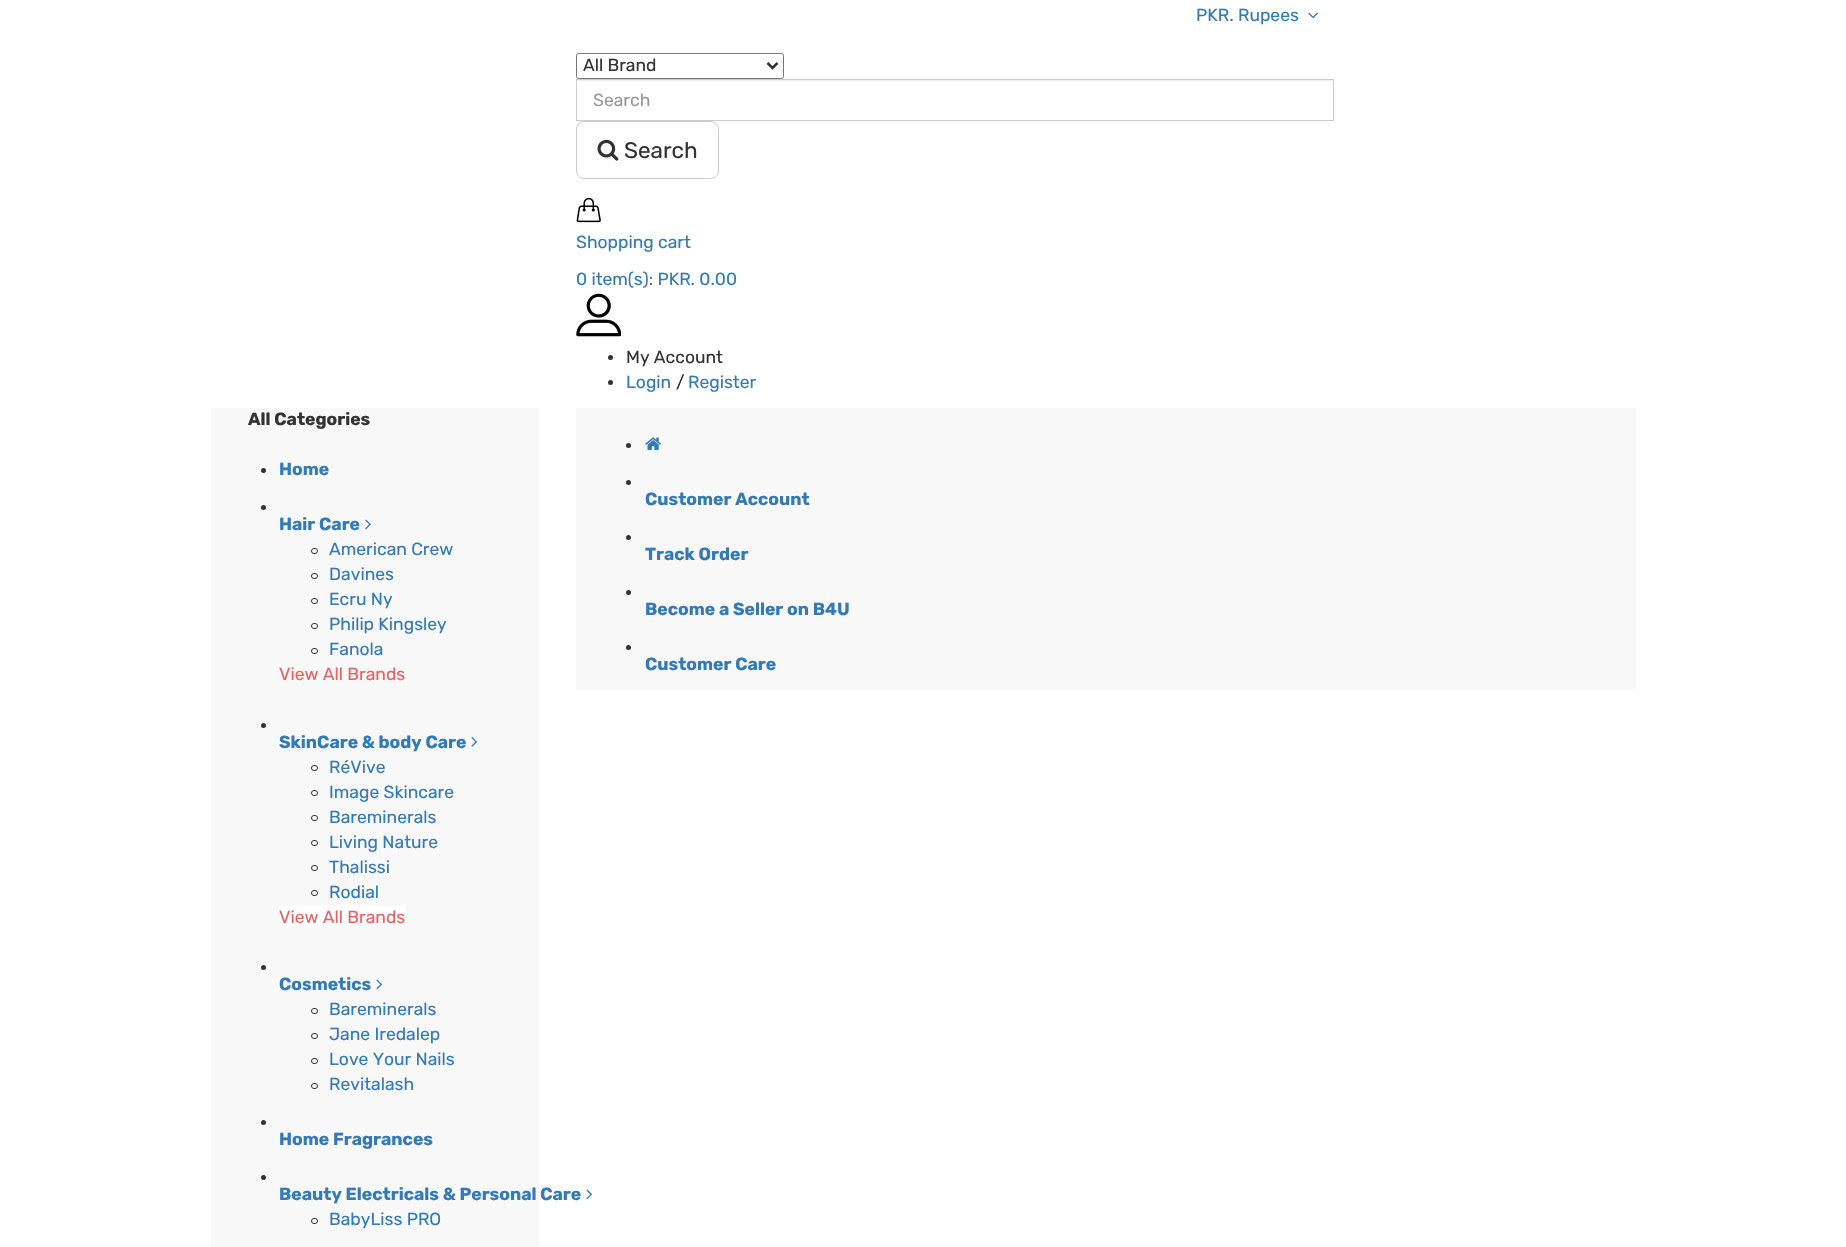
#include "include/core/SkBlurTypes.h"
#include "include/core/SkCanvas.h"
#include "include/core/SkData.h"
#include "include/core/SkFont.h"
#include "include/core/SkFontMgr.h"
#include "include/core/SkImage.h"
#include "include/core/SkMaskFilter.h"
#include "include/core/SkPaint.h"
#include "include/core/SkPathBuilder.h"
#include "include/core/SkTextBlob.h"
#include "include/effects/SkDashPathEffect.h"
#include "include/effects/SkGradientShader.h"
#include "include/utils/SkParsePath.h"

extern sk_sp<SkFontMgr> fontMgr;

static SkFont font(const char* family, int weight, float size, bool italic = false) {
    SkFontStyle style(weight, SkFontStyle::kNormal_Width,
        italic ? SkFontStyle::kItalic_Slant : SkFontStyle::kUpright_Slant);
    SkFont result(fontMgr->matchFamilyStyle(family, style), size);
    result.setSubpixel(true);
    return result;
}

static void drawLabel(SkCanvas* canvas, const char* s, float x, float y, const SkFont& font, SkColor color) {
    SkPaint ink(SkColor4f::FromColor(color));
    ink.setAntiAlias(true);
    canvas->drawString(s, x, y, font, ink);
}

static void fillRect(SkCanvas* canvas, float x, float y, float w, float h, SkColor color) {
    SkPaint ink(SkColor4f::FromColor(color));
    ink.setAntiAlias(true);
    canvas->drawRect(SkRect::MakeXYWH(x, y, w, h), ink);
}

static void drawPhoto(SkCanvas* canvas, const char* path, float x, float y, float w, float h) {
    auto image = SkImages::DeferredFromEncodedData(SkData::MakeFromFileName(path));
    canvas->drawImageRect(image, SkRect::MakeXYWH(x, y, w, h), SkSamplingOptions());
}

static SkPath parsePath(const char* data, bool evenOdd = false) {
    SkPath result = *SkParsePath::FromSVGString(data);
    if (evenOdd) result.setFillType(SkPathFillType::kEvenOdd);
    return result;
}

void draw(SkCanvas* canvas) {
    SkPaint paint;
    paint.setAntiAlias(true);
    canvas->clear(0xFFFFFFFF);
    SkFont font1 = font("Rubik", 400, 17.5f);
    drawLabel(canvas, "PKR. Rupees", 1196, 21, font1, 0xFF337AB7);
    drawPhoto(canvas, "assets/img1.png", 1308, 12, 10, 7);
    paint.setStroke(true);
    paint.setStrokeWidth(1);
    paint.setColor(0xFF767676);
    canvas->drawRoundRect(SkRect::MakeXYWH(576.5f, 53.5f, 207, 25), 2, 2, paint);
    paint.setStrokeWidth(2.5f);
    paint.setColor(0xFF333333);
    canvas->drawPath(parsePath("M767.5 63L772.5 68L777.5 63"), paint);
    drawLabel(canvas, "All Brand", 583, 71, font1, 0xFF333333);
    fillRect(canvas, 578, 80, 755, 1, 0xFFECECEC);
    paint.setStrokeWidth(1);
    paint.setColor(0xFFCCCCCC);
    canvas->drawRect(SkRect::MakeXYWH(576.5f, 79.5f, 757, 41), paint);
    drawLabel(canvas, "Search", 593, 106, font1, 0xFF999999);
    canvas->drawRoundRect(SkRect::MakeXYWH(576.5f, 121.5f, 142, 57), 7.5f, 7.5f, paint);
    drawPhoto(canvas, "assets/img2.png", 597, 139, 22, 22);
    SkFont font2 = font("Rubik", 400, 22.5f);
    drawLabel(canvas, "Search", 624, 158, font2, 0xFF333333);
    drawPhoto(canvas, "assets/img3.png", 576, 198, 25, 25);
    drawLabel(canvas, "Shopping cart", 576, 248, font1, 0xFF337AB7);
    drawLabel(canvas, "0 item(s): PKR. 0.00", 576, 285, font1, 0xFF337AB7);
    drawPhoto(canvas, "assets/img4.png", 576, 293, 45, 44);
    paint.setStroke(false);
    paint.setColor(0xFF333333);
    canvas->drawCircle(610.5f, 357.5f, 2.5f, paint);
    drawLabel(canvas, "My Account", 626, 363, font1, 0xFF333333);
    canvas->drawCircle(610.5f, 382.5f, 2.5f, paint);
    drawLabel(canvas, "Login", 626, 388, font1, 0xFF337AB7);
    drawLabel(canvas, "/", 676, 388, font1, 0xFF333333);
    drawLabel(canvas, "Register", 688, 388, font1, 0xFF337AB7);
    fillRect(canvas, 211, 408, 328, 839, 0xFFF8F8F8);
    SkFont font3 = font("Rubik", 700, 17.5f);
    drawLabel(canvas, "All Categories", 248, 425, font3, 0xFF333333);
    canvas->drawCircle(263.5f, 470.5f, 2.5f, paint);
    drawLabel(canvas, "Home", 279, 475, font3, 0xFF337AB7);
    canvas->drawCircle(263.5f, 507.5f, 2.5f, paint);
    drawLabel(canvas, "Hair Care", 279, 530, font3, 0xFF337AB7);
    drawPhoto(canvas, "assets/img5.png", 365, 519, 6, 11);
    paint.setStroke(true);
    canvas->drawRoundRect(SkRect::MakeXYWH(311.5f, 548.5f, 6, 5), 2.5f, 2.5f, paint);
    drawLabel(canvas, "American Crew", 329, 555, font1, 0xFF337AB7);
    canvas->drawRoundRect(SkRect::MakeXYWH(311.5f, 573.5f, 6, 5), 2.5f, 2.5f, paint);
    drawLabel(canvas, "Davines", 329, 580, font1, 0xFF337AB7);
    canvas->drawRoundRect(SkRect::MakeXYWH(311.5f, 598.5f, 6, 5), 2.5f, 2.5f, paint);
    drawLabel(canvas, "Ecru Ny", 329, 605, font1, 0xFF337AB7);
    canvas->drawRoundRect(SkRect::MakeXYWH(311.5f, 623.5f, 6, 5), 2.5f, 2.5f, paint);
    drawLabel(canvas, "Philip Kingsley", 329, 630, font1, 0xFF337AB7);
    canvas->drawRoundRect(SkRect::MakeXYWH(311.5f, 648.5f, 6, 5), 2.5f, 2.5f, paint);
    drawLabel(canvas, "Fanola", 329, 655, font1, 0xFF337AB7);
    drawLabel(canvas, "View All Brands", 279, 680, font1, 0xFFE76363);
    paint.setStroke(false);
    canvas->drawCircle(263.5f, 725.5f, 2.5f, paint);
    drawLabel(canvas, "SkinCare & body Care", 279, 748, font3, 0xFF337AB7);
    drawPhoto(canvas, "assets/img6.png", 471, 737, 6, 10);
    paint.setStroke(true);
    canvas->drawRoundRect(SkRect::MakeXYWH(311.5f, 765.5f, 6, 5), 2.5f, 2.5f, paint);
    drawLabel(canvas, "RéVive", 329, 773, font1, 0xFF337AB7);
    canvas->drawRoundRect(SkRect::MakeXYWH(311.5f, 790.5f, 6, 5), 2.5f, 2.5f, paint);
    drawLabel(canvas, "Image Skincare", 329, 798, font1, 0xFF337AB7);
    canvas->drawRoundRect(SkRect::MakeXYWH(311.5f, 815.5f, 6, 5), 2.5f, 2.5f, paint);
    drawLabel(canvas, "Bareminerals", 329, 823, font1, 0xFF337AB7);
    canvas->drawRoundRect(SkRect::MakeXYWH(311.5f, 840.5f, 6, 5), 2.5f, 2.5f, paint);
    drawLabel(canvas, "Living Nature", 329, 848, font1, 0xFF337AB7);
    canvas->drawRoundRect(SkRect::MakeXYWH(311.5f, 865.5f, 6, 5), 2.5f, 2.5f, paint);
    drawLabel(canvas, "Thalissi", 329, 873, font1, 0xFF337AB7);
    canvas->drawRoundRect(SkRect::MakeXYWH(311.5f, 890.5f, 6, 5), 2.5f, 2.5f, paint);
    drawLabel(canvas, "Rodial", 329, 898, font1, 0xFF337AB7);
    fillRect(canvas, 280, 906, 126, 22, 0xFFFFFFFF);
    drawLabel(canvas, "View All Brands", 279, 923, font1, 0xFFE76363);
    paint.setStroke(false);
    canvas->drawCircle(263.5f, 967.5f, 2.5f, paint);
    drawLabel(canvas, "Cosmetics", 279, 990, font3, 0xFF337AB7);
    drawPhoto(canvas, "assets/img7.png", 376, 979, 6, 11);
    paint.setStroke(true);
    canvas->drawRoundRect(SkRect::MakeXYWH(311.5f, 1008.5f, 6, 5), 2.5f, 2.5f, paint);
    drawLabel(canvas, "Bareminerals", 329, 1015, font1, 0xFF337AB7);
    canvas->drawRoundRect(SkRect::MakeXYWH(311.5f, 1033.5f, 6, 5), 2.5f, 2.5f, paint);
    drawLabel(canvas, "Jane Iredalep", 329, 1040, font1, 0xFF337AB7);
    canvas->drawRoundRect(SkRect::MakeXYWH(311.5f, 1058.5f, 6, 5), 2.5f, 2.5f, paint);
    drawLabel(canvas, "Love Your Nails", 329, 1065, font1, 0xFF337AB7);
    canvas->drawRoundRect(SkRect::MakeXYWH(311.5f, 1083.5f, 6, 5), 2.5f, 2.5f, paint);
    drawLabel(canvas, "Revitalash", 329, 1090, font1, 0xFF337AB7);
    paint.setStroke(false);
    canvas->drawCircle(263.5f, 1122.5f, 2.5f, paint);
    drawLabel(canvas, "Home Fragrances", 279, 1145, font3, 0xFF337AB7);
    canvas->drawCircle(263.5f, 1177.5f, 2.5f, paint);
    drawLabel(canvas, "Beauty Electricals & Personal Care", 279, 1200, font3, 0xFF337AB7);
    drawPhoto(canvas, "assets/img8.png", 586, 1189, 6, 11);
    paint.setStroke(true);
    canvas->drawRoundRect(SkRect::MakeXYWH(311.5f, 1218.5f, 6, 5), 2.5f, 2.5f, paint);
    drawLabel(canvas, "BabyLiss PRO", 329, 1225, font1, 0xFF337AB7);
    fillRect(canvas, 576, 408, 1060, 282, 0xFFF8F8F8);
    paint.setStroke(false);
    canvas->drawCircle(628.5f, 445.5f, 2.5f, paint);
    drawPhoto(canvas, "assets/img9.png", 645, 437, 16, 13);
    canvas->drawCircle(628.5f, 482.5f, 2.5f, paint);
    drawLabel(canvas, "Customer Account", 645, 505, font3, 0xFF337AB7);
    canvas->drawCircle(628.5f, 537.5f, 2.5f, paint);
    drawLabel(canvas, "Track Order", 645, 560, font3, 0xFF337AB7);
    canvas->drawCircle(628.5f, 592.5f, 2.5f, paint);
    drawLabel(canvas, "Become a Seller on B4U", 645, 615, font3, 0xFF337AB7);
    canvas->drawCircle(628.5f, 647.5f, 2.5f, paint);
    drawLabel(canvas, "Customer Care", 645, 670, font3, 0xFF337AB7);
}
